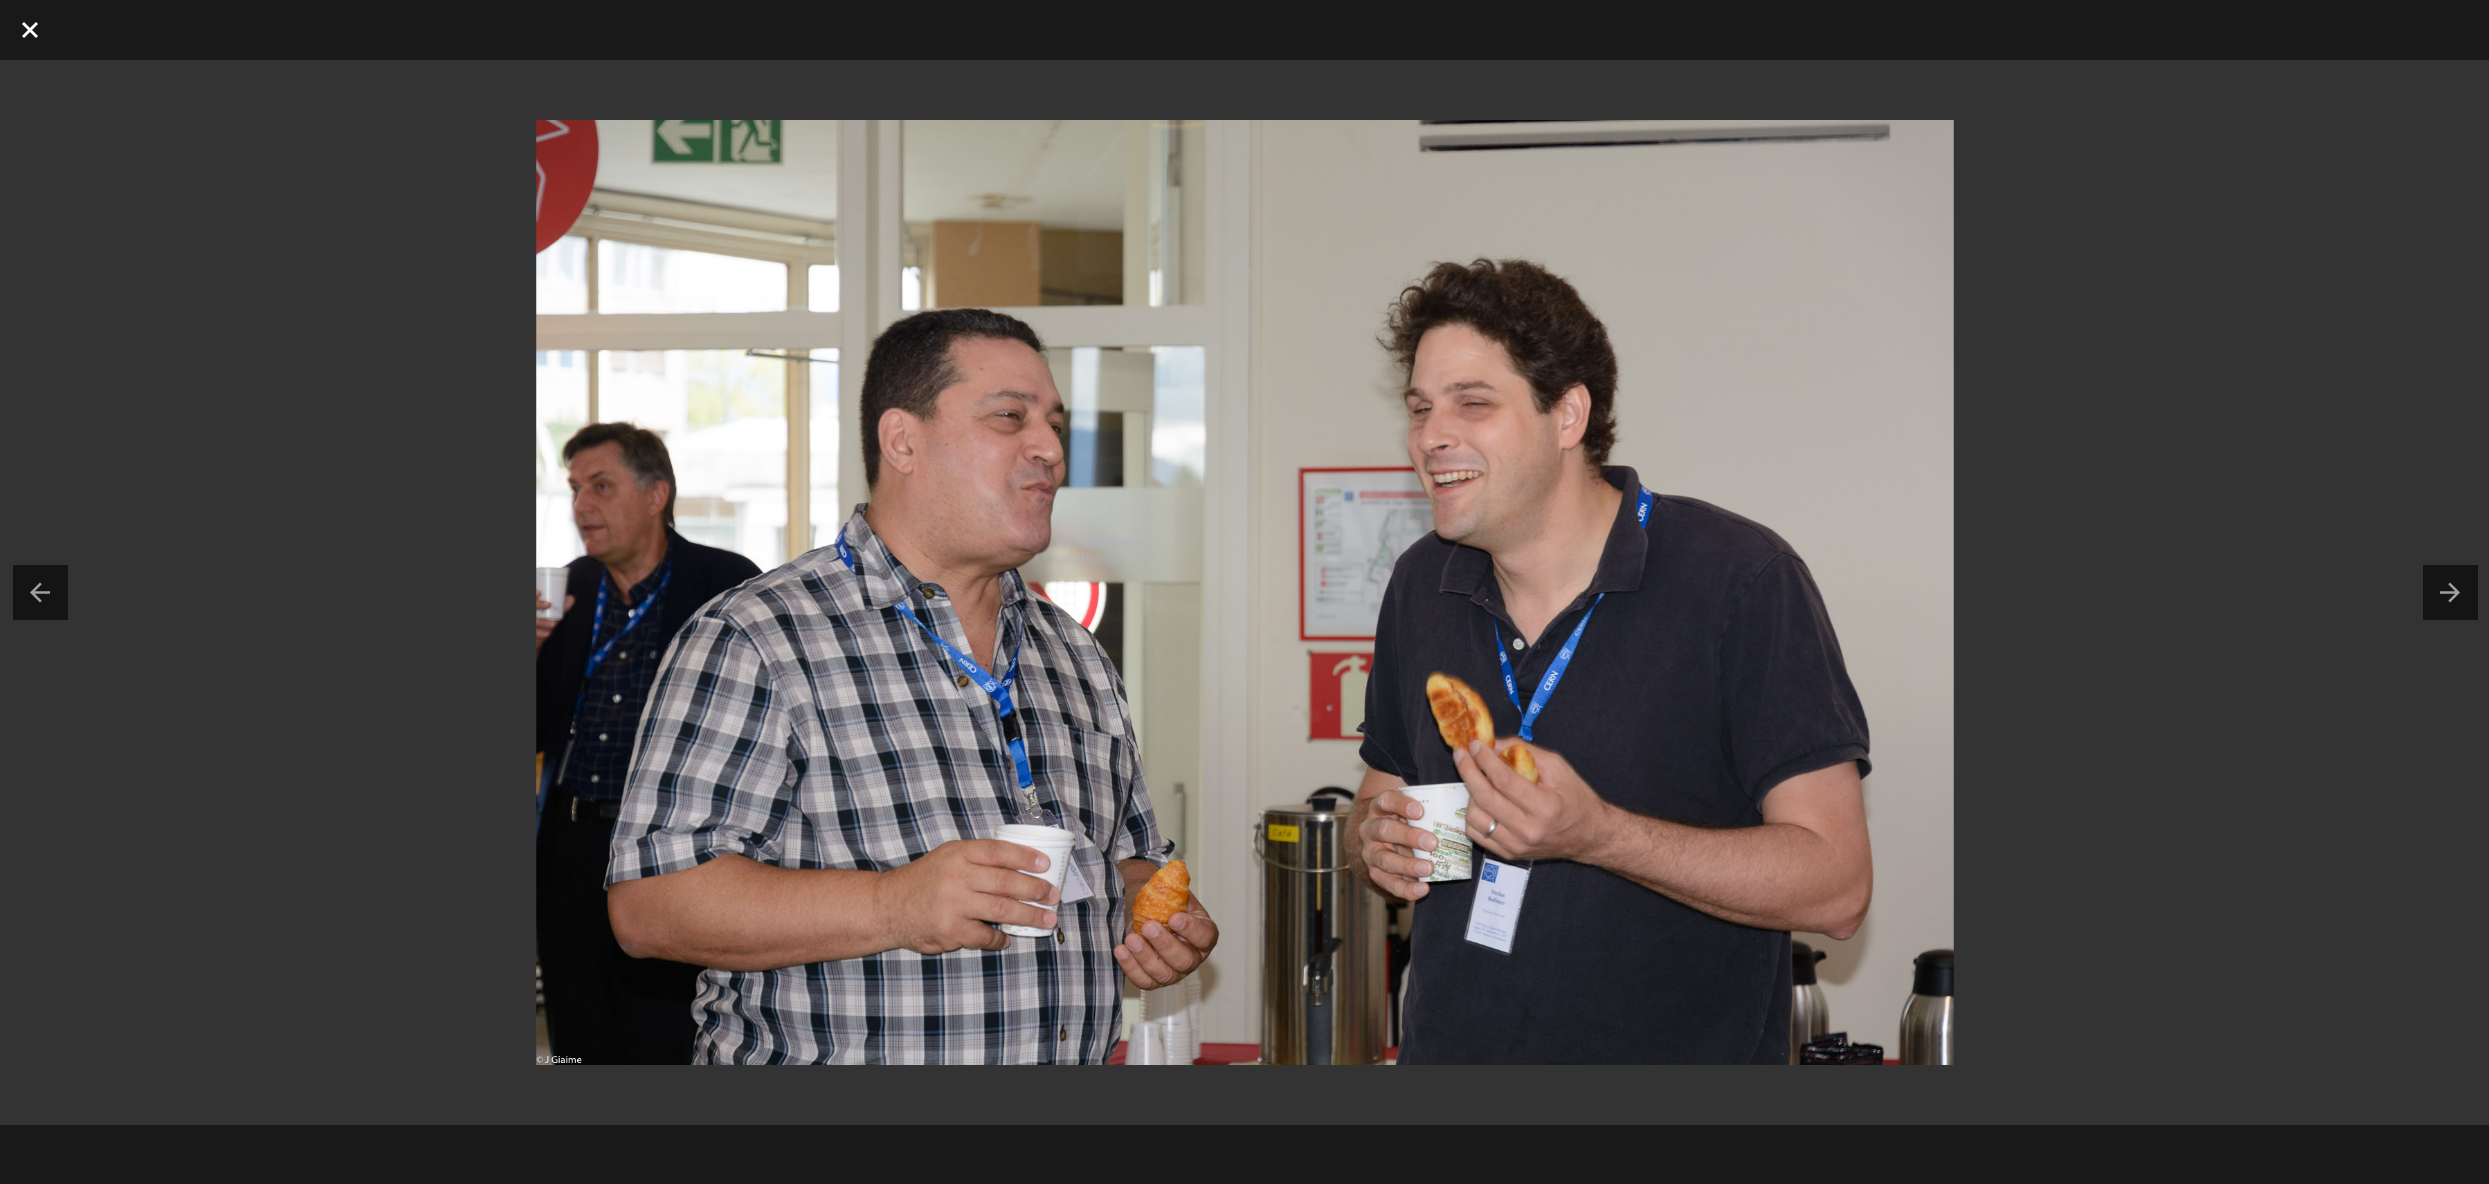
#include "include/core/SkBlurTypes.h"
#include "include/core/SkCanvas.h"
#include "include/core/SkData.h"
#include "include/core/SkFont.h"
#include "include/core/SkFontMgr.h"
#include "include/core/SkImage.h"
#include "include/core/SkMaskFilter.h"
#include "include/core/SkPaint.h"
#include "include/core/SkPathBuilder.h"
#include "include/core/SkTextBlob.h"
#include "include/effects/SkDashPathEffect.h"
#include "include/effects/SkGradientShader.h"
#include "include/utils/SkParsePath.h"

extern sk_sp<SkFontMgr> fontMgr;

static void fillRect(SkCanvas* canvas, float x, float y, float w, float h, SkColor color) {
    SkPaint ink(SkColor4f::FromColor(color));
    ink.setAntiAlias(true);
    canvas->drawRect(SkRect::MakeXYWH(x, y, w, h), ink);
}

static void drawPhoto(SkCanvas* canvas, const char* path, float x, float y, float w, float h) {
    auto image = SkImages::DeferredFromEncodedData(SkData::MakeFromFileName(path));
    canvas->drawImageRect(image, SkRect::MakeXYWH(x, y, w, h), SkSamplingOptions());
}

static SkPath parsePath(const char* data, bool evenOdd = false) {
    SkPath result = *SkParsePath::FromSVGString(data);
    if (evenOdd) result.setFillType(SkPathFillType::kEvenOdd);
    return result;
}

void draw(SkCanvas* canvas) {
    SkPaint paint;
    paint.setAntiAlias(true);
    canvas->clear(0xFF333333);
    fillRect(canvas, 0, 0, 2489, 60, 0xFF191919);
    paint.setColor(0xFFFFFFFF);
    canvas->drawPath(parsePath("M24 22L38 36L36 38L22 24Z"), paint);
    canvas->drawPath(parsePath("M22 36L36 22L38 24L24 38Z"), paint);
    fillRect(canvas, 13, 565, 55, 55, 0xFF141414);
    drawPhoto(canvas, "assets/img1.png", 30, 582, 20, 21);
    fillRect(canvas, 2423, 565, 55, 55, 0xFF141414);
    drawPhoto(canvas, "assets/img2.png", 2440, 582, 20, 21);
    drawPhoto(canvas, "assets/img3.png", 536, 120, 1418, 945);
    fillRect(canvas, 0, 1125, 2489, 59, 0xFF191919);
}
